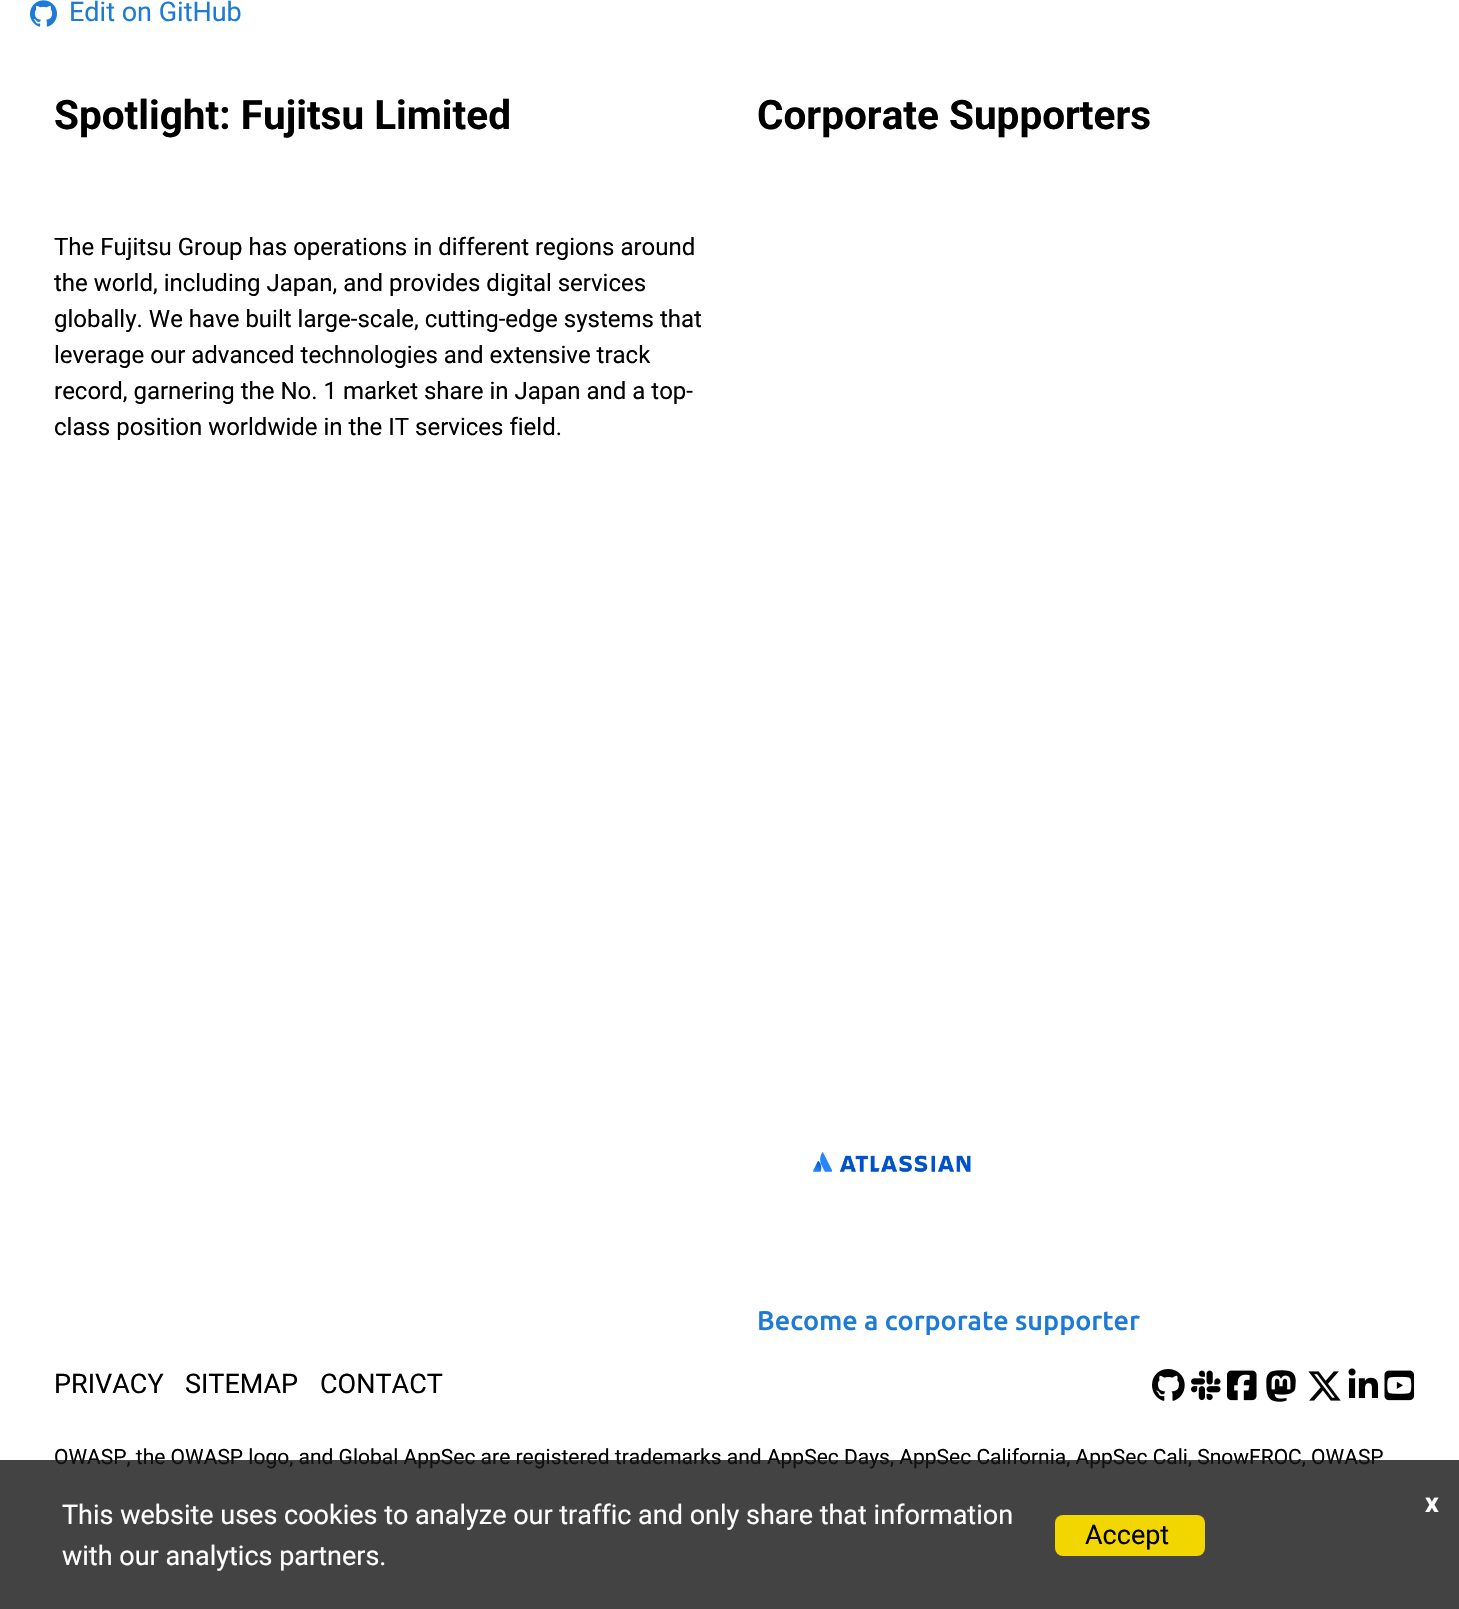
#include "include/core/SkBlurTypes.h"
#include "include/core/SkCanvas.h"
#include "include/core/SkData.h"
#include "include/core/SkFont.h"
#include "include/core/SkFontMgr.h"
#include "include/core/SkImage.h"
#include "include/core/SkMaskFilter.h"
#include "include/core/SkPaint.h"
#include "include/core/SkPathBuilder.h"
#include "include/core/SkTextBlob.h"
#include "include/effects/SkDashPathEffect.h"
#include "include/effects/SkGradientShader.h"
#include "include/utils/SkParsePath.h"

extern sk_sp<SkFontMgr> fontMgr;

static SkFont font(const char* family, int weight, float size, bool italic = false) {
    SkFontStyle style(weight, SkFontStyle::kNormal_Width,
        italic ? SkFontStyle::kItalic_Slant : SkFontStyle::kUpright_Slant);
    SkFont result(fontMgr->matchFamilyStyle(family, style), size);
    result.setSubpixel(true);
    return result;
}

static void drawLabel(SkCanvas* canvas, const char* s, float x, float y, const SkFont& font, SkColor color) {
    SkPaint ink(SkColor4f::FromColor(color));
    ink.setAntiAlias(true);
    canvas->drawString(s, x, y, font, ink);
}

static void fillRect(SkCanvas* canvas, float x, float y, float w, float h, SkColor color) {
    SkPaint ink(SkColor4f::FromColor(color));
    ink.setAntiAlias(true);
    canvas->drawRect(SkRect::MakeXYWH(x, y, w, h), ink);
}

static void fillRRect(SkCanvas* canvas, float x, float y, float w, float h, float radius, SkColor color) {
    SkPaint ink(SkColor4f::FromColor(color));
    ink.setAntiAlias(true);
    canvas->drawRoundRect(SkRect::MakeXYWH(x, y, w, h), radius, radius, ink);
}

static void drawPhoto(SkCanvas* canvas, const char* path, float x, float y, float w, float h) {
    auto image = SkImages::DeferredFromEncodedData(SkData::MakeFromFileName(path));
    canvas->drawImageRect(image, SkRect::MakeXYWH(x, y, w, h), SkSamplingOptions());
}

void draw(SkCanvas* canvas) {
    SkPaint paint;
    paint.setAntiAlias(true);
    canvas->clear(0xFFFFFFFF);
    drawPhoto(canvas, "assets/img1.png", 30, 0, 27, 27);
    SkFont font1 = font("Roboto", 400, 27);
    drawLabel(canvas, "Edit on GitHub", 69, 21, font1, 0xFF1D7BD7);
    SkFont font2 = font("Roboto", 700, 40.5f);
    drawLabel(canvas, "Spotlight: Fujitsu Limited", 54, 129, font2, 0xFF000000);
    SkFont font3 = font("Roboto", 400, 24);
    drawLabel(canvas, "The Fujitsu Group has operations in different regions around", 54, 255, font3, 0xFF000000);
    drawLabel(canvas, "the world, including Japan, and provides digital services", 54, 291, font3, 0xFF000000);
    drawLabel(canvas, "globally. We have built large-scale, cutting-edge systems that", 54, 327, font3, 0xFF000000);
    drawLabel(canvas, "leverage our advanced technologies and extensive track", 54, 363, font3, 0xFF000000);
    drawLabel(canvas, "record, garnering the No. 1 market share in Japan and a top-", 54, 399, font3, 0xFF000000);
    drawLabel(canvas, "class position worldwide in the IT services field.", 54, 435, font3, 0xFF000000);
    drawLabel(canvas, "Corporate Supporters", 757, 129, font2, 0xFF000000);
    drawPhoto(canvas, "assets/img2.png", 813, 1152, 158, 20);
    SkFont font4 = font("Ubuntu", 500, 27);
    drawLabel(canvas, "Become a corporate supporter", 757, 1330, font4, 0xFF1D7BD7);
    drawLabel(canvas, "PRIVACY", 54, 1393, font1, 0xFF000000);
    drawLabel(canvas, "SITEMAP", 185, 1393, font1, 0xFF000000);
    drawLabel(canvas, "CONTACT", 320, 1393, font1, 0xFF000000);
    drawPhoto(canvas, "assets/img3.png", 1152, 1369, 33, 32);
    drawPhoto(canvas, "assets/img4.png", 1191, 1370, 30, 31);
    drawPhoto(canvas, "assets/img5.png", 1227, 1370, 30, 31);
    drawPhoto(canvas, "assets/img6.png", 1266, 1370, 30, 32);
    drawPhoto(canvas, "assets/img7.png", 1308, 1371, 33, 30);
    drawPhoto(canvas, "assets/img8.png", 1348, 1368, 31, 30);
    drawPhoto(canvas, "assets/img9.png", 1384, 1370, 31, 31);
    SkFont font5 = font("Roboto", 400, 21);
    drawLabel(canvas, "OWASP, the OWASP logo, and Global AppSec are registered trademarks and AppSec Days, AppSec California, AppSec Cali, SnowFROC, OWASP", 54, 1464, font5, 0xFF000000);
    fillRect(canvas, 0, 1460, 1459, 149, 0xCC141414);
    drawLabel(canvas, "This website uses cookies to analyze our traffic and only share that information", 62, 1524, font1, 0xFFFFFFFF);
    drawLabel(canvas, "with our analytics partners.", 62, 1565, font1, 0xFFFFFFFF);
    fillRRect(canvas, 1055, 1515, 150, 41, 8, 0xFFF1D600);
    drawLabel(canvas, "Accept", 1085, 1544, font1, 0xFF000000);
    SkFont font6 = font("Roboto", 700, 27);
    drawLabel(canvas, "x", 1425, 1512, font6, 0xFFFFFFFF);
}
